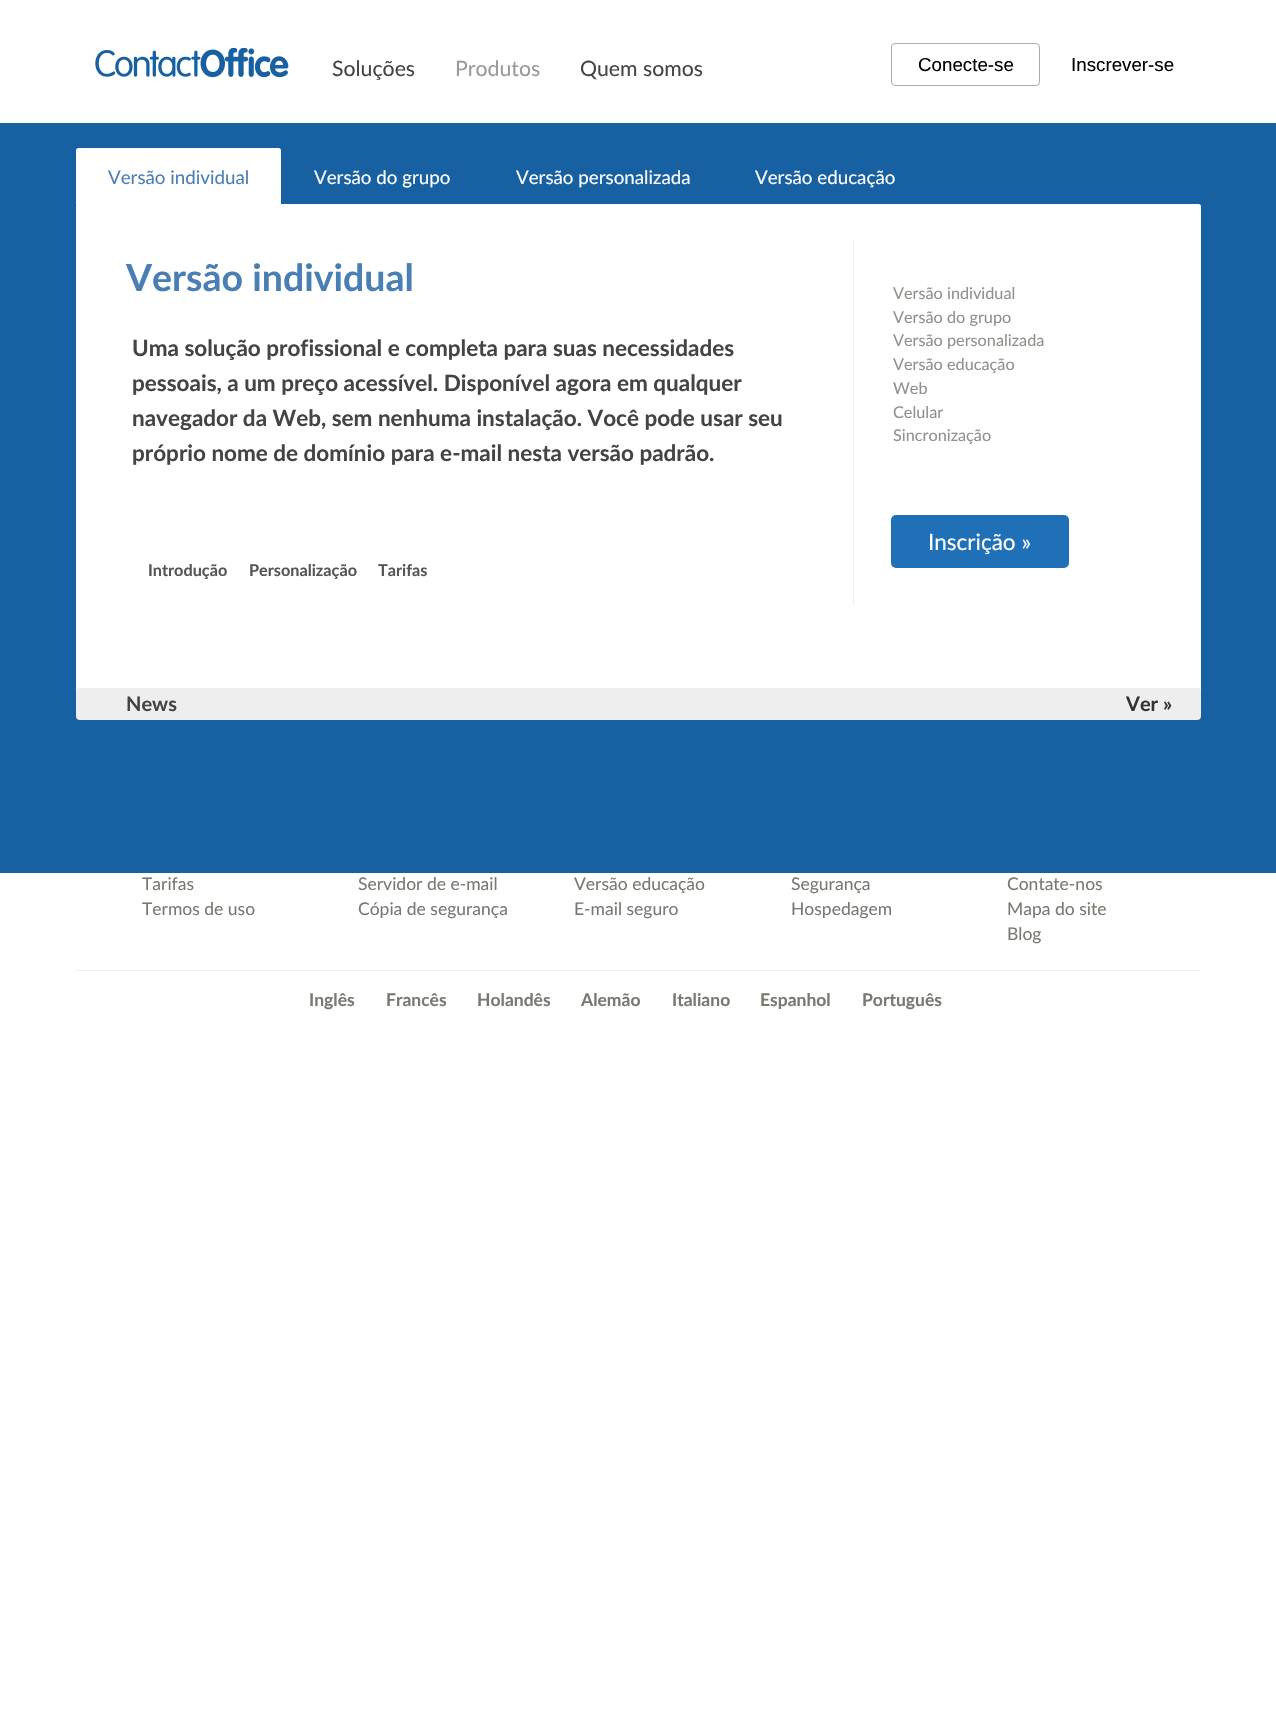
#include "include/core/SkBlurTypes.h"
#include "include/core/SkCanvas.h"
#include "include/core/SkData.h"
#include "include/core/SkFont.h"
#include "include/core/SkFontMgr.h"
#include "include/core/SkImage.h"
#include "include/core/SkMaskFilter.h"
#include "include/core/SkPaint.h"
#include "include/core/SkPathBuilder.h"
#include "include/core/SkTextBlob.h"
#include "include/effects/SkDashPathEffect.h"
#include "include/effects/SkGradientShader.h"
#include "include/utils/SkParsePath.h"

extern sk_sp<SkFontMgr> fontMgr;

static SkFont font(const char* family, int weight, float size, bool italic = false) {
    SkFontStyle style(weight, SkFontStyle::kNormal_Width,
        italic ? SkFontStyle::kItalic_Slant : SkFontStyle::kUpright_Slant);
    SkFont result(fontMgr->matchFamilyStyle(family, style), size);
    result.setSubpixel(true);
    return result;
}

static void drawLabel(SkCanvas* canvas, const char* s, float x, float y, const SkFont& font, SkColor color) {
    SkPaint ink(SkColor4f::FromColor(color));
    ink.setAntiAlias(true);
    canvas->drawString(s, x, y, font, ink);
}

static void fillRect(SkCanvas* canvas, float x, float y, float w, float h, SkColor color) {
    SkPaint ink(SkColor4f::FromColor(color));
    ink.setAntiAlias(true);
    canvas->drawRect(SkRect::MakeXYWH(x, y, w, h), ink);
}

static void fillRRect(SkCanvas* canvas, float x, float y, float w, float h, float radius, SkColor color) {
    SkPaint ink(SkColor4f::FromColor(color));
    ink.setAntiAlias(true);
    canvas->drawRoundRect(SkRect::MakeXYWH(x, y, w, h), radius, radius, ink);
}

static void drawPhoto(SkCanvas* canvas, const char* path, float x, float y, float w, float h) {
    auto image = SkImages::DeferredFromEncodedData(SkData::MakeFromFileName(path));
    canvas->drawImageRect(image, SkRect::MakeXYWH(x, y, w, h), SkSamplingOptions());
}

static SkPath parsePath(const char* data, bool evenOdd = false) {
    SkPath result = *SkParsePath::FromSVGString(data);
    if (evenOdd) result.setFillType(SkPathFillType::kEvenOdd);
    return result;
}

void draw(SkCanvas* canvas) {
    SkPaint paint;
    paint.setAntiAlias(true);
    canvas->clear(0xFFFFFFFF);
    drawPhoto(canvas, "assets/img1.png", 95, 48, 194, 30);
    SkFont font1 = font("Lato", 400, 21.25f);
    drawLabel(canvas, "Soluções", 332, 76, font1, 0xFF444444);
    drawLabel(canvas, "Produtos", 455, 76, font1, 0xFF999999);
    drawLabel(canvas, "Quem somos", 580, 76, font1, 0xFF444444);
    paint.setStroke(true);
    paint.setStrokeWidth(1);
    paint.setColor(0xFFAAAAAA);
    canvas->drawRoundRect(SkRect::MakeXYWH(891.5f, 43.5f, 148, 42), 3.5f, 3.5f, paint);
    SkFont font2 = font("Liberation Sans", 400, 18.75f);
    drawLabel(canvas, "Conecte-se", 918, 71, font2, 0xFF000000);
    drawLabel(canvas, "Inscrever-se", 1071, 71, font2, 0xFF000000);
    fillRect(canvas, 0, 123, 1276, 750, 0xFF1760A1);
    fillRRect(canvas, 76, 204, 1125, 490, 2.5f, 0xFFFFFFFF);
    paint.setStroke(false);
    paint.setColor(0xFFFFFFFF);
    canvas->drawPath(parsePath("M78.5 148H278.5C280 148 281 149 281 150.5V205H76V150.5C76 149 77 148 78.5 148Z"), paint);
    SkFont font3 = font("Lato", 400, 18.75f);
    drawLabel(canvas, "Versão individual", 108, 184, font3, 0xFF4A7FB6);
    drawLabel(canvas, "Versão do grupo", 314, 184, font3, 0xFFFFFFFF);
    drawLabel(canvas, "Versão personalizada", 516, 184, font3, 0xFFFFFFFF);
    drawLabel(canvas, "Versão educação", 755, 184, font3, 0xFFFFFFFF);
    SkFont font4 = font("Lato", 700, 37.5f);
    drawLabel(canvas, "Versão individual", 126, 291, font4, 0xFF4A7FB6);
    SkFont font5 = font("Lato", 700, 22.5f);
    drawLabel(canvas, "Uma solução profissional e completa para suas necessidades", 132, 356, font5, 0xFF444444);
    drawLabel(canvas, "pessoais, a um preço acessível. Disponível agora em qualquer", 132, 391, font5, 0xFF444444);
    drawLabel(canvas, "navegador da Web, sem nenhuma instalação. Você pode usar seu", 132, 426, font5, 0xFF444444);
    drawLabel(canvas, "próprio nome de domínio para e-mail nesta versão padrão.", 132, 461, font5, 0xFF444444);
    fillRect(canvas, 853, 241, 1, 364, 0xFFEFEFEF);
    SkFont font6 = font("Lato", 400, 16.25f);
    drawLabel(canvas, "Versão individual", 893, 299, font6, 0xFF91908B);
    drawLabel(canvas, "Versão do grupo", 893, 323, font6, 0xFF91908B);
    drawLabel(canvas, "Versão personalizada", 893, 346, font6, 0xFF91908B);
    drawLabel(canvas, "Versão educação", 893, 370, font6, 0xFF91908B);
    drawLabel(canvas, "Web", 893, 394, font6, 0xFF91908B);
    drawLabel(canvas, "Celular", 893, 418, font6, 0xFF91908B);
    drawLabel(canvas, "Sincronização", 893, 441, font6, 0xFF91908B);
    fillRRect(canvas, 891, 515, 178, 53, 5, 0xFF2070B8);
    SkFont font7 = font("Lato", 400, 22.5f);
    drawLabel(canvas, "Inscrição »", 928, 550, font7, 0xFFFFFFFF);
    SkFont font8 = font("Lato", 700, 16.25f);
    drawLabel(canvas, "Introdução", 148, 576, font8, 0xFF555555);
    drawLabel(canvas, "Personalização", 249, 576, font8, 0xFF555555);
    drawLabel(canvas, "Tarifas", 378, 576, font8, 0xFF555555);
    fillRRect(canvas, 76, 688, 1125, 32, 4, 0xFFEEEEEE);
    SkFont font9 = font("Lato", 700, 20);
    drawLabel(canvas, "News", 126, 711, font9, 0xFF444444);
    drawLabel(canvas, "Ver »", 1126, 711, font9, 0xFF333333);
    SkFont font10 = font("Lato", 400, 17.5f);
    drawLabel(canvas, "Tarifas", 142, 890, font10, 0xFF797871);
    drawLabel(canvas, "Termos de uso", 142, 915, font10, 0xFF797871);
    drawLabel(canvas, "Servidor de e-mail", 358, 890, font10, 0xFF797871);
    drawLabel(canvas, "Cópia de segurança", 358, 915, font10, 0xFF797871);
    drawLabel(canvas, "Versão educação", 574, 890, font10, 0xFF797871);
    drawLabel(canvas, "E-mail seguro", 574, 915, font10, 0xFF797871);
    drawLabel(canvas, "Segurança", 791, 890, font10, 0xFF797871);
    drawLabel(canvas, "Hospedagem", 791, 915, font10, 0xFF797871);
    drawLabel(canvas, "Contate-nos", 1007, 890, font10, 0xFF797871);
    drawLabel(canvas, "Mapa do site", 1007, 915, font10, 0xFF797871);
    drawLabel(canvas, "Blog", 1007, 940, font10, 0xFF797871);
    fillRect(canvas, 76, 970, 1125, 1, 0xFFEEEEEE);
    SkFont font11 = font("Lato", 700, 17.5f);
    drawLabel(canvas, "Inglês", 309, 1006, font11, 0xFF797871);
    drawLabel(canvas, "Francês", 386, 1006, font11, 0xFF797871);
    drawLabel(canvas, "Holandês", 477, 1006, font11, 0xFF797871);
    drawLabel(canvas, "Alemão", 581, 1006, font11, 0xFF797871);
    drawLabel(canvas, "Italiano", 672, 1006, font11, 0xFF797871);
    drawLabel(canvas, "Espanhol", 760, 1006, font11, 0xFF797871);
    drawLabel(canvas, "Português", 862, 1006, font11, 0xFF797871);
}
